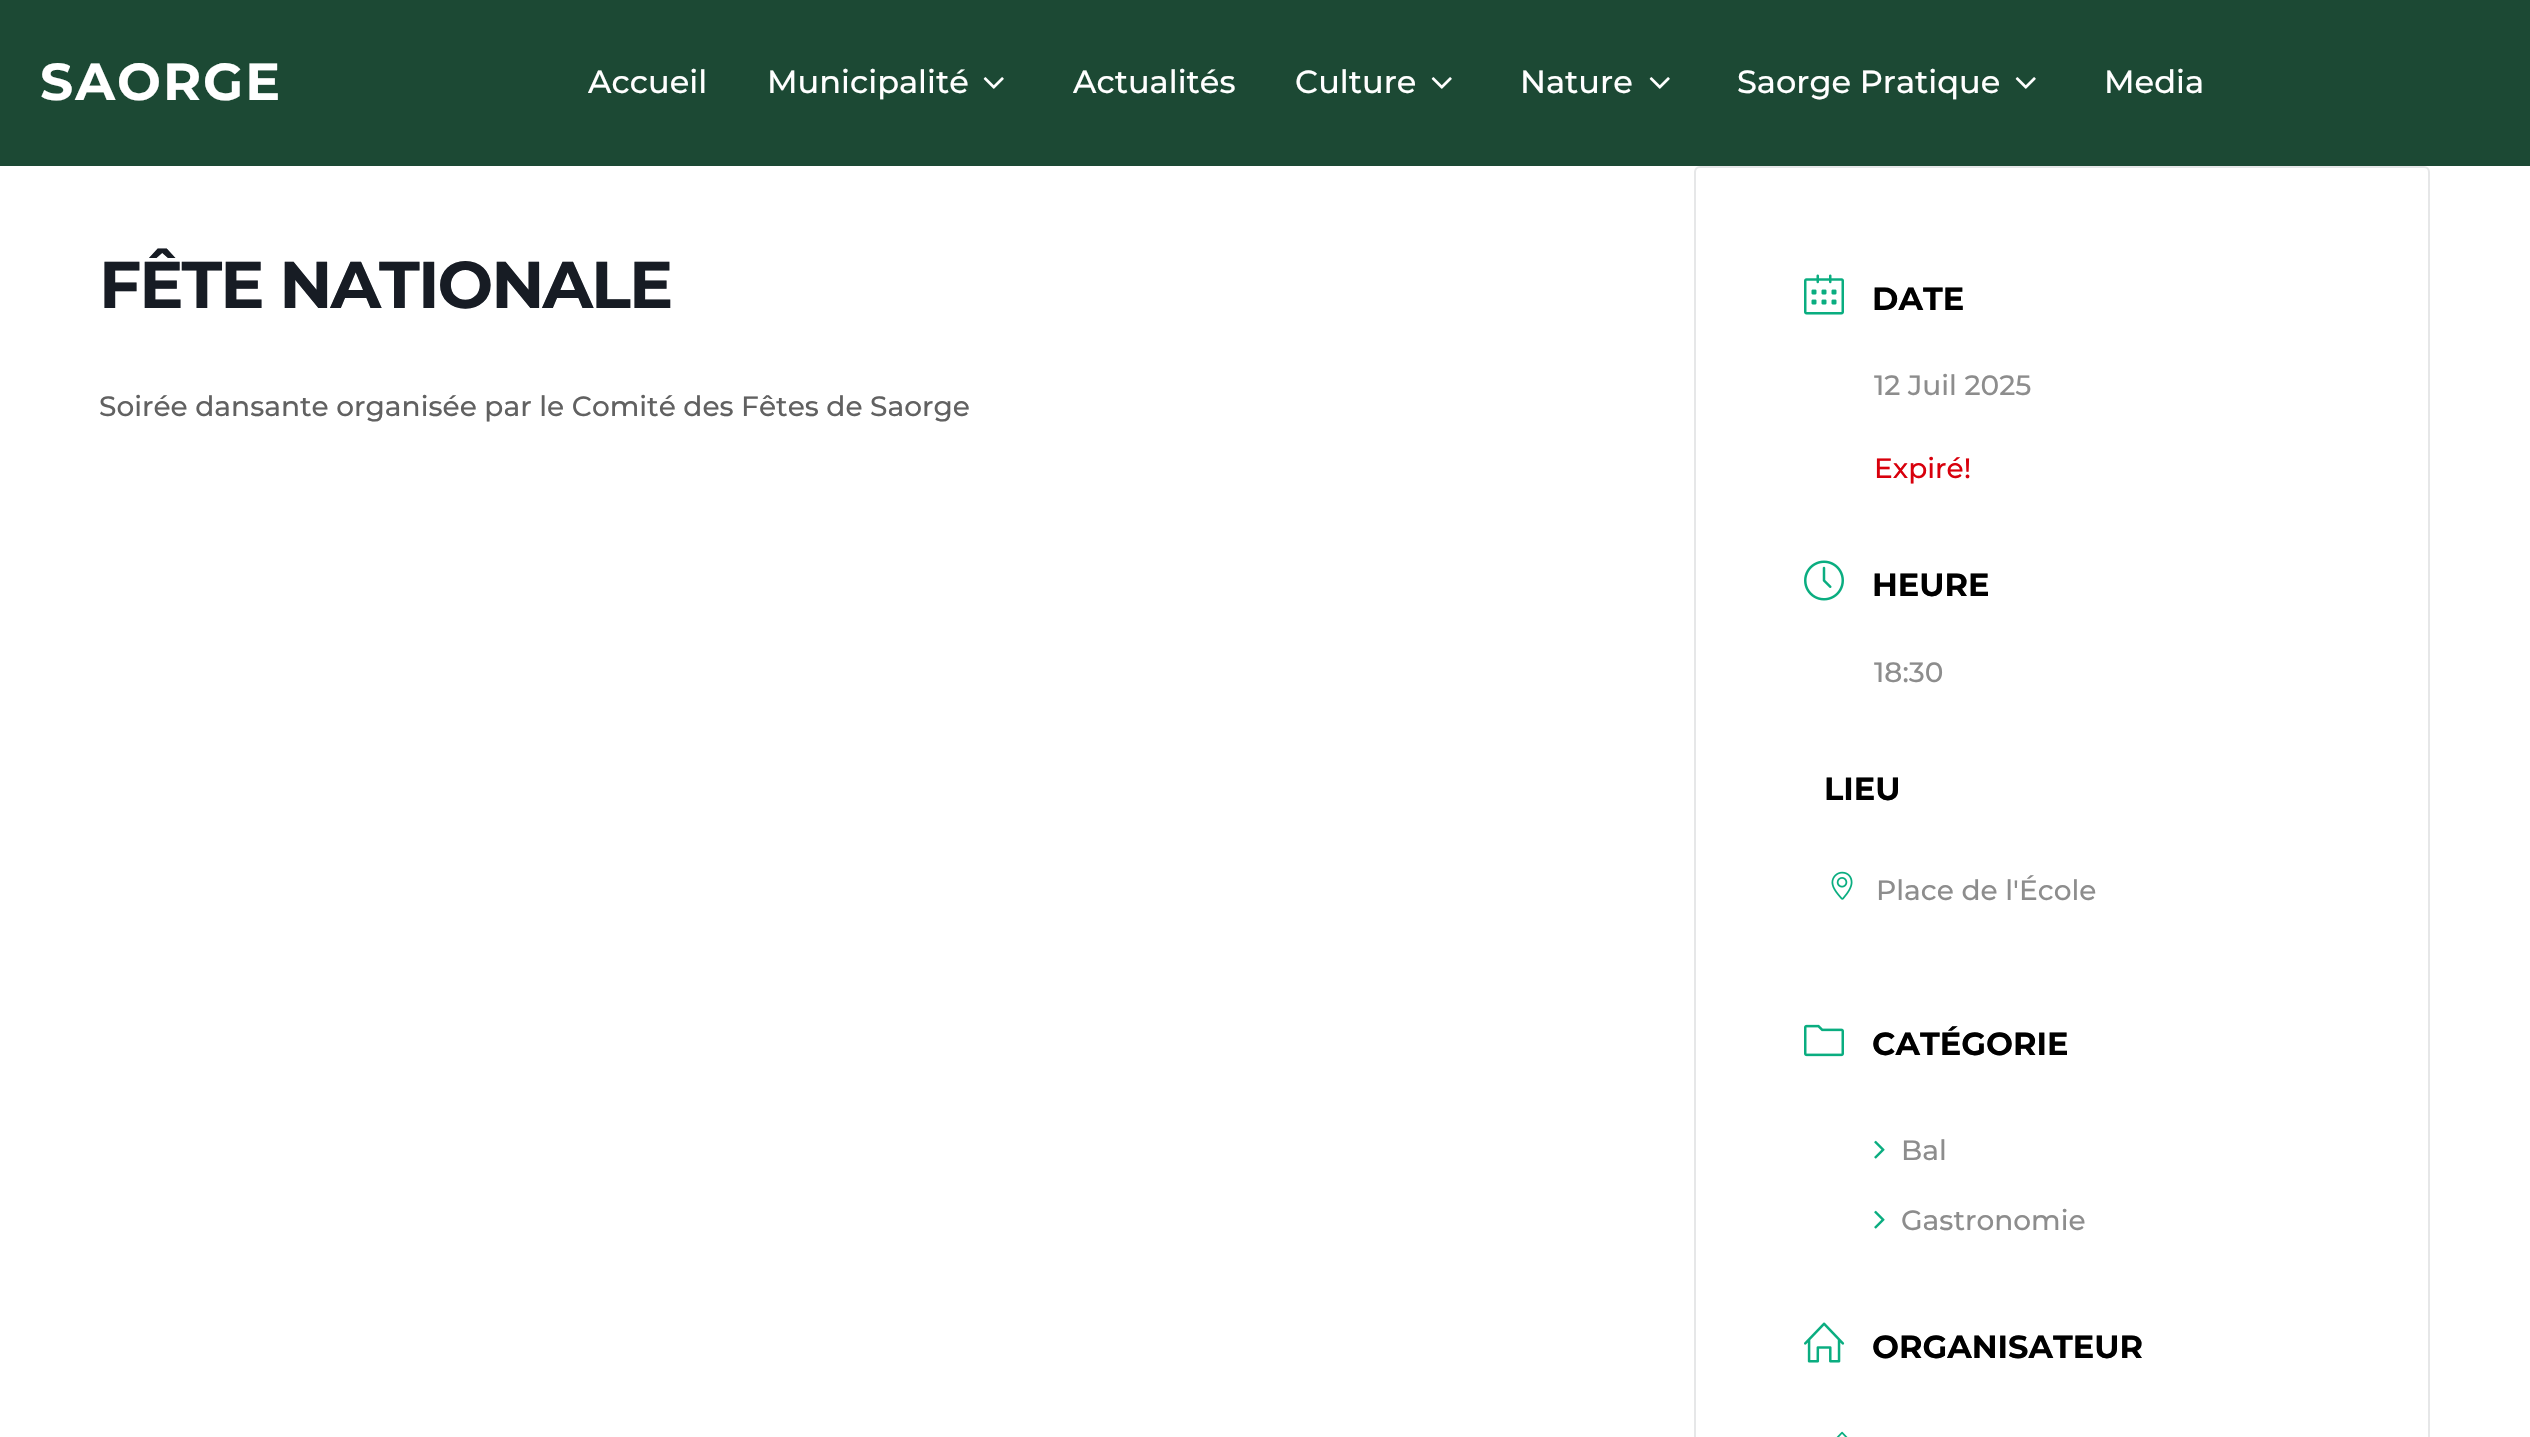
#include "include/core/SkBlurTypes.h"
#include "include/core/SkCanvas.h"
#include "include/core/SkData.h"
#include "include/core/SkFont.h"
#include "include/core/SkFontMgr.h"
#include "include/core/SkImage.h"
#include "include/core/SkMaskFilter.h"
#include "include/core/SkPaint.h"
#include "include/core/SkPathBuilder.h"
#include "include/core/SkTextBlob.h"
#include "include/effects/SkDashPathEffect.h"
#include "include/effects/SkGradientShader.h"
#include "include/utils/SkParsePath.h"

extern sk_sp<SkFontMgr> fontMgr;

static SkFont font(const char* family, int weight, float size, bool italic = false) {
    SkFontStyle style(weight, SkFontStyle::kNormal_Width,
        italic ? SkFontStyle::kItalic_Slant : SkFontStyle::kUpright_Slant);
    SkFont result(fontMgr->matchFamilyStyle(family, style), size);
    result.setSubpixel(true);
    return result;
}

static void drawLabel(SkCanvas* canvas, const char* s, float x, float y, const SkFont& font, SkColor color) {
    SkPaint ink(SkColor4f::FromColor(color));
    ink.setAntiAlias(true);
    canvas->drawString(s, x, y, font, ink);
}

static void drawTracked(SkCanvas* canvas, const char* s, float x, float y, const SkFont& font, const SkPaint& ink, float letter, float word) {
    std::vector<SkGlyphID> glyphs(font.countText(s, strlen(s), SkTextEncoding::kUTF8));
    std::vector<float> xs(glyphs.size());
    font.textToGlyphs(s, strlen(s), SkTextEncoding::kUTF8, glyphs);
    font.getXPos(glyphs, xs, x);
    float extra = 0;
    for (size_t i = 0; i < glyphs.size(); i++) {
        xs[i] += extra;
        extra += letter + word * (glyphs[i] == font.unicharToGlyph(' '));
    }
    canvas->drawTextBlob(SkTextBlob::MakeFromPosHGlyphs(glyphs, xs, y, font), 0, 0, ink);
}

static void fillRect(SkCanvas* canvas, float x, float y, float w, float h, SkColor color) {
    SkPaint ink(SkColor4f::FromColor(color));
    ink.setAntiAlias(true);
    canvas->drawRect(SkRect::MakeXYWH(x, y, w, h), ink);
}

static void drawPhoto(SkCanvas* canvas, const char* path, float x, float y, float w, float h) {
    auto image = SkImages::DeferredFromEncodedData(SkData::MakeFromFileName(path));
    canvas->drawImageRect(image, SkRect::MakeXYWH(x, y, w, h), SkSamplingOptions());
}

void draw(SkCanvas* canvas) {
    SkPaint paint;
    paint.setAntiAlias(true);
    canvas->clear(0xFFFFFFFF);
    fillRect(canvas, 0, 0, 2530, 166, 0xFF1C4934);
    SkFont font1 = font("Montserrat", 700, 52);
    paint.setColor(0xFFFFFFFF);
    drawTracked(canvas, "SAORGE", 40, 100, font1, paint, 2, 0);
    SkFont font2 = font("Montserrat", 500, 32);
    drawLabel(canvas, "Accueil", 588, 93, font2, 0xFFFFFFFF);
    drawLabel(canvas, "Municipalité", 767, 93, font2, 0xFFFFFFFF);
    drawPhoto(canvas, "assets/img1.png", 983, 77, 21, 12);
    drawLabel(canvas, "Actualités", 1073, 93, font2, 0xFFFFFFFF);
    drawLabel(canvas, "Culture", 1295, 93, font2, 0xFFFFFFFF);
    drawPhoto(canvas, "assets/img1.png", 1431, 77, 21, 12);
    drawLabel(canvas, "Nature", 1520, 93, font2, 0xFFFFFFFF);
    drawPhoto(canvas, "assets/img1.png", 1649, 77, 21, 12);
    drawLabel(canvas, "Saorge Pratique", 1737, 93, font2, 0xFFFFFFFF);
    drawPhoto(canvas, "assets/img1.png", 2015, 77, 21, 12);
    drawLabel(canvas, "Media", 2104, 93, font2, 0xFFFFFFFF);
    SkFont font3 = font("Montserrat", 700, 66);
    paint.setColor(0xFF171C24);
    drawTracked(canvas, "FÊTE NATIONALE", 99, 308, font3, paint, -2, 0);
    SkFont font4 = font("Montserrat", 500, 28);
    drawLabel(canvas, "Soirée dansante organisée par le Comité des Fêtes de Saorge", 99, 416, font4, 0xFF616161);
    paint.setStroke(true);
    paint.setStrokeWidth(2);
    paint.setColor(0xFFE6E7E8);
    canvas->drawRoundRect(SkRect::MakeXYWH(1695, 167, 734, 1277), 5, 5, paint);
    drawPhoto(canvas, "assets/img2.png", 1804, 274, 40, 41);
    SkFont font5 = font("Montserrat", 700, 32);
    drawLabel(canvas, "DATE", 1872, 310, font5, 0xFF000000);
    drawLabel(canvas, "12 Juil 2025", 1874, 395, font4, 0xFF8D8D8D);
    drawLabel(canvas, "Expiré!", 1874, 478, font4, 0xFFD8000C);
    drawPhoto(canvas, "assets/img3.png", 1804, 560, 40, 41);
    drawLabel(canvas, "HEURE", 1872, 596, font5, 0xFF000000);
    drawLabel(canvas, "18:30", 1874, 682, font4, 0xFF8D8D8D);
    drawLabel(canvas, "LIEU", 1824, 800, font5, 0xFF000000);
    drawPhoto(canvas, "assets/img4.png", 1831, 871, 22, 29);
    drawLabel(canvas, "Place de l'École", 1876, 900, font4, 0xFF8D8D8D);
    drawPhoto(canvas, "assets/img5.png", 1804, 1024, 40, 33);
    drawLabel(canvas, "CATÉGORIE", 1872, 1055, font5, 0xFF000000);
    drawPhoto(canvas, "assets/img6.png", 1874, 1140, 11, 19);
    drawLabel(canvas, "Bal", 1901, 1160, font4, 0xFF8D8D8D);
    drawPhoto(canvas, "assets/img6.png", 1874, 1210, 11, 19);
    drawLabel(canvas, "Gastronomie", 1901, 1230, font4, 0xFF8D8D8D);
    drawPhoto(canvas, "assets/img7.png", 1804, 1322, 41, 41);
    drawLabel(canvas, "ORGANISATEUR", 1872, 1358, font5, 0xFF000000);
    drawPhoto(canvas, "assets/img8.png", 1836, 1431, 12, 6);
}
